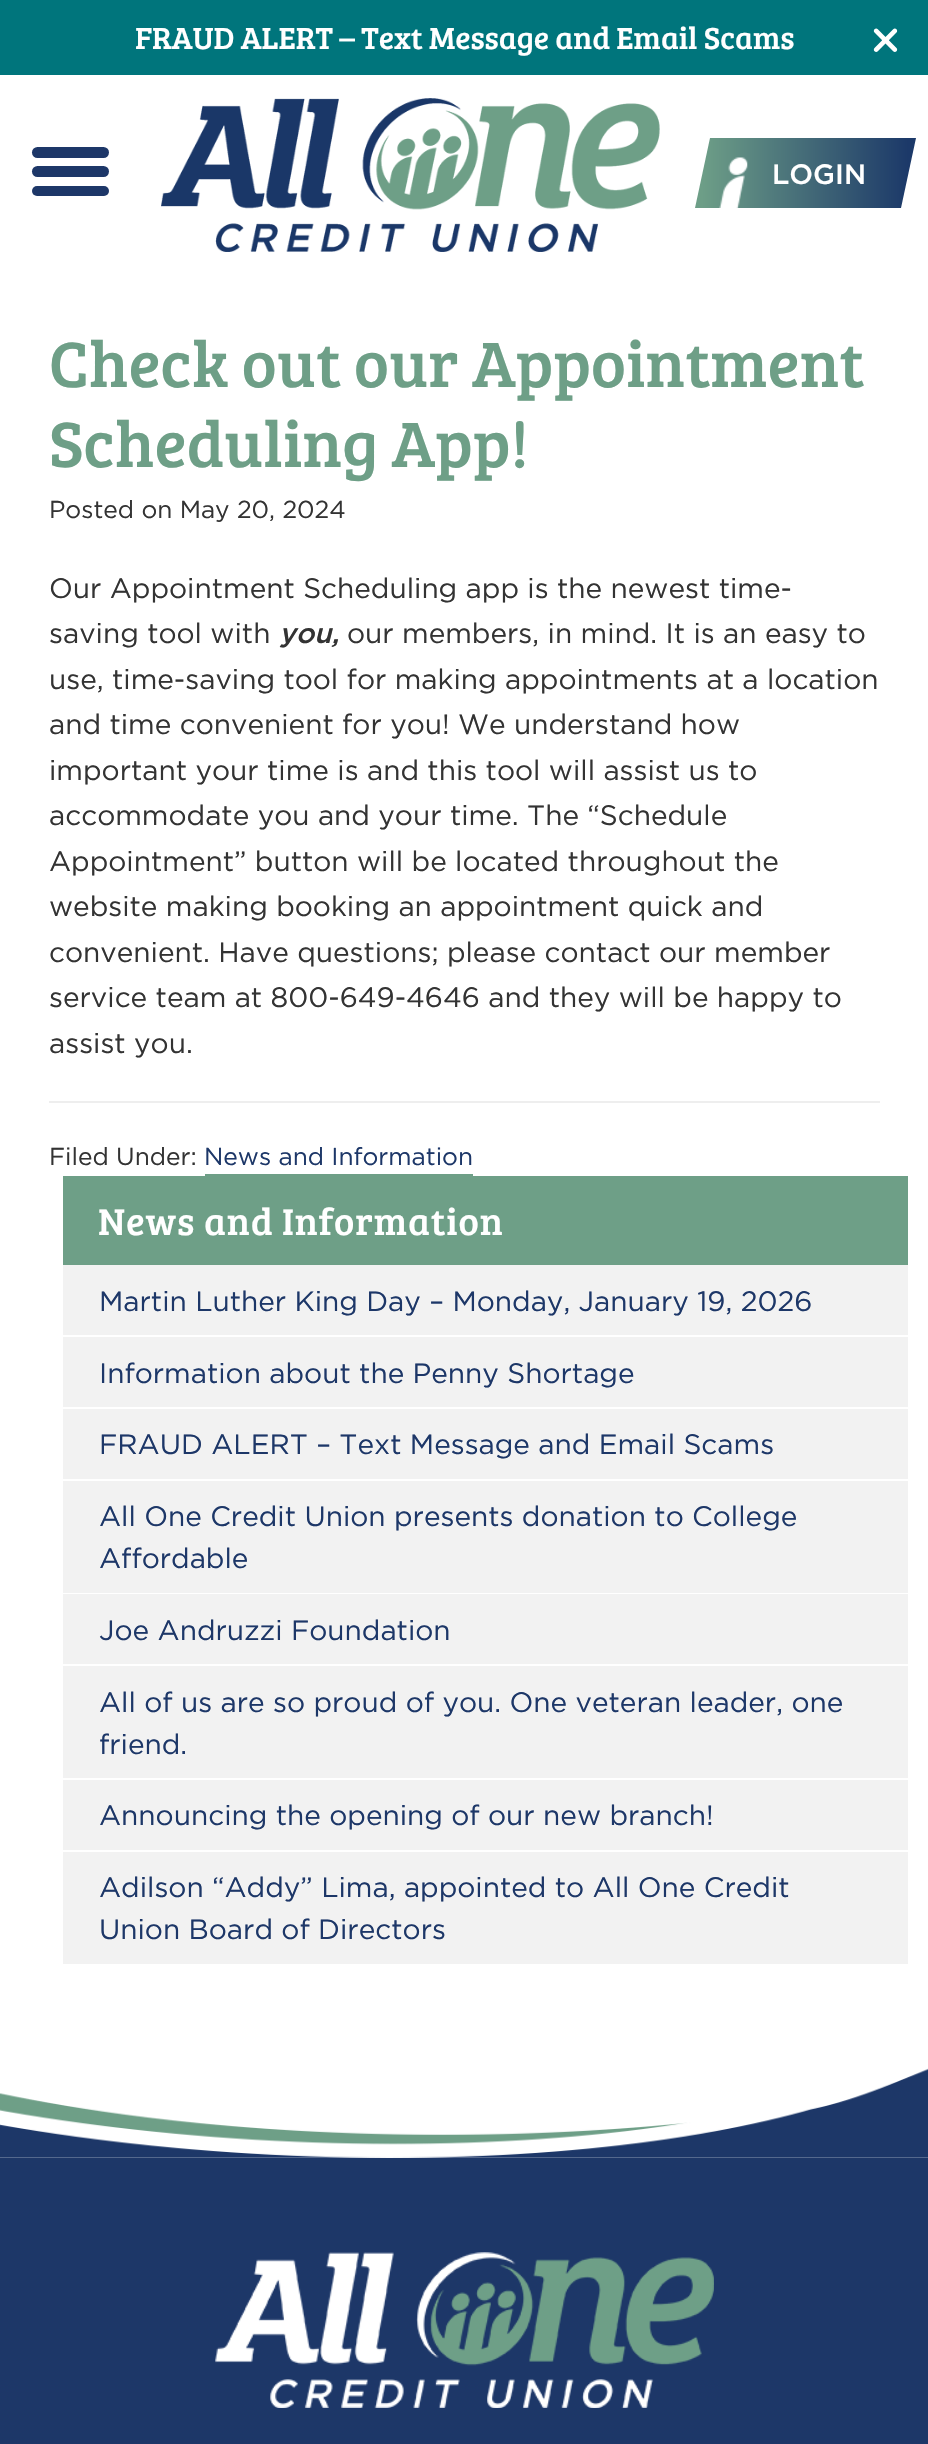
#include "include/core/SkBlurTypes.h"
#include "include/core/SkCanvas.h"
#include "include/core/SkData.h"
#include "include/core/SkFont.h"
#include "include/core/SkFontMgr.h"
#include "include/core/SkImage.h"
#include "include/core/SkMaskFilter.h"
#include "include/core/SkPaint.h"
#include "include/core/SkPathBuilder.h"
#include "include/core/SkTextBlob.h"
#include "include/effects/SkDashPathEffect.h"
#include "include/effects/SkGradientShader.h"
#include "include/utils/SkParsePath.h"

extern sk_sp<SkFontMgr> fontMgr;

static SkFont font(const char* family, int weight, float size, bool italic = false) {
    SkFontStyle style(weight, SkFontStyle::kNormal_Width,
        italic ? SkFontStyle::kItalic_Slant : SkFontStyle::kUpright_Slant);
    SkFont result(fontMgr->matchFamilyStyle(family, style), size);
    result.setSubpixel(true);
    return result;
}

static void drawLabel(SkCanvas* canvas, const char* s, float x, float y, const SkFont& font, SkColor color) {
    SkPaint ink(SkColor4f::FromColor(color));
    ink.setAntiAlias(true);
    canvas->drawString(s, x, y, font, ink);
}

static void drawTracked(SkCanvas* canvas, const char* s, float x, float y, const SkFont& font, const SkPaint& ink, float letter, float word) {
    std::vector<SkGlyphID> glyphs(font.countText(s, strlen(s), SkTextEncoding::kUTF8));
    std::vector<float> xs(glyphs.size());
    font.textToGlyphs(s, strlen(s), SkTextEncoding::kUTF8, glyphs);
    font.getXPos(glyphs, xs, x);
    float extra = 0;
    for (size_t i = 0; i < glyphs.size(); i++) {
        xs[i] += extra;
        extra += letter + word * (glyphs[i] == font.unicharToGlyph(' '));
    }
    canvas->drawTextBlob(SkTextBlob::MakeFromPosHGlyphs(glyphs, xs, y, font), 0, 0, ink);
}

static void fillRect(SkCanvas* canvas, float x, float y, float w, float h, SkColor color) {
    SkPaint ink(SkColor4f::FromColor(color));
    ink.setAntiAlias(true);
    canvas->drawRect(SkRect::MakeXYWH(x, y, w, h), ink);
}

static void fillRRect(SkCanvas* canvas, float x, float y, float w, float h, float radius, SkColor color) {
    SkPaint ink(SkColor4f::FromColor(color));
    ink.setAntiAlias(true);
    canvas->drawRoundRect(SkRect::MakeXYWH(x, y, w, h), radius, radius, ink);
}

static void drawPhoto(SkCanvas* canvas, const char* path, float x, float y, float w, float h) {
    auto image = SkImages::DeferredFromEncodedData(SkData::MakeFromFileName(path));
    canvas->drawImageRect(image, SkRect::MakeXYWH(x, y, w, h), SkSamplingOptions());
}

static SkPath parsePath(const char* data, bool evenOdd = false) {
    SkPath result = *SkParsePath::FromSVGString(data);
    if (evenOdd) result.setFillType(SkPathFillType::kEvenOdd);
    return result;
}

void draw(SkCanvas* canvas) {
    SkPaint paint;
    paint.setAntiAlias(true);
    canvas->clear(0xFFFFFFFF);
    fillRect(canvas, 0, 0, 928, 75, 0xFF00757C);
    SkFont font1 = font("Bree Serif", 400, 31.5f);
    drawLabel(canvas, "FRAUD ALERT – Text Message and Email Scams", 135, 49, font1, 0xFFFFFFFF);
    drawPhoto(canvas, "assets/img1.png", 873, 28, 25, 24);
    fillRRect(canvas, 32, 147, 77, 11, 5.5f, 0xFF1D3768);
    fillRRect(canvas, 32, 166, 77, 11, 5.5f, 0xFF1D3768);
    fillRRect(canvas, 32, 186, 77, 10, 5, 0xFF1D3768);
    drawPhoto(canvas, "assets/img2.png", 161, 98, 499, 154);
    {
        const SkColor colors[] = {0xFF1C3969, 0xFF6D9E87};
        const float stops[] = {0, 1};
        const SkPoint ends[] = {{908, 173}, {702, 173}};
        paint.setShader(SkGradientShader::MakeLinear(ends, colors, stops, 2, SkTileMode::kClamp));
        paint.setAlpha(255);
    }
    canvas->drawPath(parsePath("M710 138H916L901 208H695Z"), paint);
    drawPhoto(canvas, "assets/img3.png", 719, 157, 29, 51);
    SkFont font2 = font("Gotham", 500, 28);
    drawLabel(canvas, "LOGIN", 772, 184, font2, 0xFFFFFFFF);
    SkFont font3 = font("Bree Serif", 400, 66.2f);
    drawLabel(canvas, "Check out our Appointment", 49, 387, font3, 0xFF6E9F87);
    drawLabel(canvas, "Scheduling App!", 49, 467, font3, 0xFF6E9F87);
    SkFont font4 = font("Gotham", 400, 24.5f);
    drawLabel(canvas, "Posted on May 20, 2024", 49, 518, font4, 0xFF333333);
    SkFont font5 = font("Gotham", 400, 28);
    drawLabel(canvas, "Our Appointment Scheduling app is the newest time-", 49, 598, font5, 0xFF333333);
    drawLabel(canvas, "saving tool with", 49, 643, font5, 0xFF333333);
    SkFont font6 = font("Gotham", 500, 28, true);
    drawLabel(canvas, "you,", 279, 643, font6, 0xFF333333);
    drawLabel(canvas, "our members, in mind. It is an easy to", 347, 643, font5, 0xFF333333);
    drawLabel(canvas, "use, time-saving tool for making appointments at a location", 49, 689, font5, 0xFF333333);
    drawLabel(canvas, "and time convenient for you! We understand how", 49, 734, font5, 0xFF333333);
    drawLabel(canvas, "important your time is and this tool will assist us to", 49, 780, font5, 0xFF333333);
    drawLabel(canvas, "accommodate you and your time. The “Schedule", 49, 825, font5, 0xFF333333);
    drawLabel(canvas, "Appointment” button will be located throughout the", 49, 871, font5, 0xFF333333);
    drawLabel(canvas, "website making booking an appointment quick and", 49, 916, font5, 0xFF333333);
    drawLabel(canvas, "convenient. Have questions; please contact our member", 49, 962, font5, 0xFF333333);
    drawLabel(canvas, "service team at 800-649-4646 and they will be happy to", 49, 1007, font5, 0xFF333333);
    drawLabel(canvas, "assist you.", 49, 1053, font5, 0xFF333333);
    fillRect(canvas, 49, 1101, 831, 2, 0xFFEEEEEE);
    drawLabel(canvas, "Filed Under:", 49, 1165, font4, 0xFF333333);
    drawLabel(canvas, "News and Information", 204, 1165, font4, 0xFF1D3768);
    fillRect(canvas, 205, 1174, 268, 2, 0xFF6E9F87);
    fillRect(canvas, 63, 1176, 845, 89, 0xFF6E9F87);
    SkFont font7 = font("Bree Serif", 400, 38.5f);
    paint.setShader(nullptr);
    paint.setColor(0xFFFFFFFF);
    drawTracked(canvas, "News and Information", 98, 1235, font7, paint, 0.9f, 0);
    fillRect(canvas, 63, 1265, 845, 70, 0xFFF2F2F2);
    drawLabel(canvas, "Martin Luther King Day – Monday, January 19, 2026", 99, 1311, font5, 0xFF1D3768);
    fillRect(canvas, 63, 1337, 845, 70, 0xFFF2F2F2);
    drawLabel(canvas, "Information about the Penny Shortage", 99, 1383, font5, 0xFF1D3768);
    fillRect(canvas, 63, 1409, 845, 70, 0xFFF2F2F2);
    drawLabel(canvas, "FRAUD ALERT – Text Message and Email Scams", 99, 1454, font5, 0xFF1D3768);
    fillRect(canvas, 63, 1481, 845, 112, 0xFFF2F2F2);
    drawLabel(canvas, "All One Credit Union presents donation to College", 99, 1526, font5, 0xFF1D3768);
    drawLabel(canvas, "Affordable", 99, 1568, font5, 0xFF1D3768);
    fillRect(canvas, 63, 1594, 845, 70, 0xFFF2F2F2);
    drawLabel(canvas, "Joe Andruzzi Foundation", 99, 1640, font5, 0xFF1D3768);
    fillRect(canvas, 63, 1666, 845, 112, 0xFFF2F2F2);
    drawLabel(canvas, "All of us are so proud of you. One veteran leader, one", 99, 1712, font5, 0xFF1D3768);
    drawLabel(canvas, "friend.", 99, 1754, font5, 0xFF1D3768);
    fillRect(canvas, 63, 1780, 845, 70, 0xFFF2F2F2);
    drawLabel(canvas, "Announcing the opening of our new branch!", 99, 1825, font5, 0xFF1D3768);
    fillRect(canvas, 63, 1852, 845, 112, 0xFFF2F2F2);
    drawLabel(canvas, "Adilson “Addy” Lima, appointed to All One Credit", 99, 1897, font5, 0xFF1D3768);
    drawLabel(canvas, "Union Board of Directors", 99, 1939, font5, 0xFF1D3768);
    drawPhoto(canvas, "assets/img4.png", 0, 2068, 928, 90);
    fillRect(canvas, 0, 2158, 928, 286, 0xFF1D3768);
    drawPhoto(canvas, "assets/img5.png", 215, 2252, 499, 156);
}
